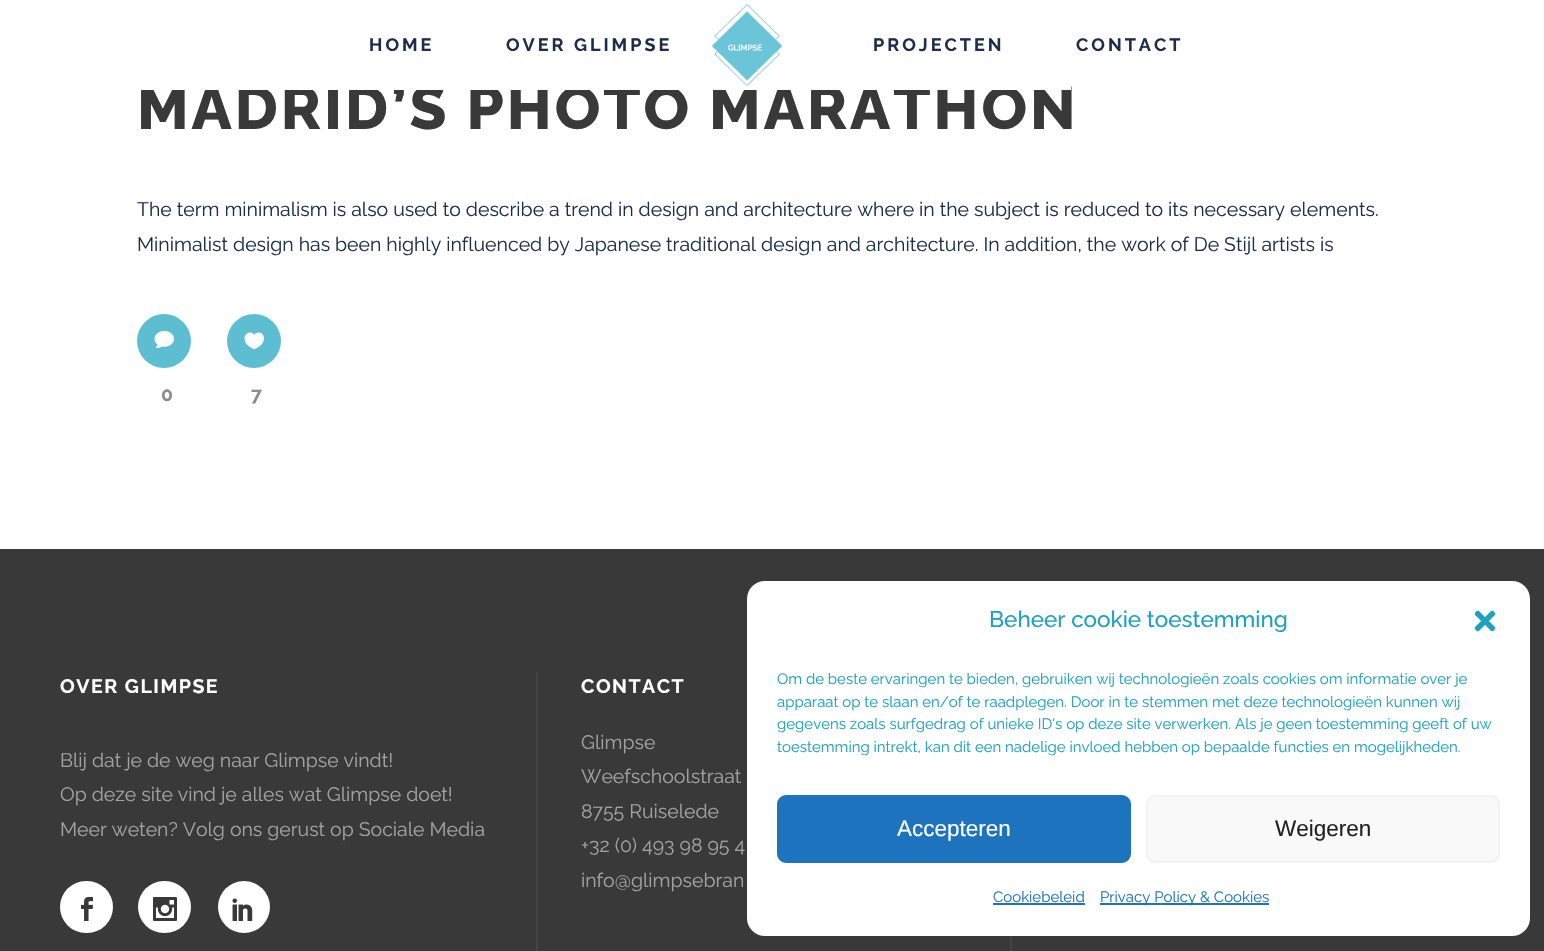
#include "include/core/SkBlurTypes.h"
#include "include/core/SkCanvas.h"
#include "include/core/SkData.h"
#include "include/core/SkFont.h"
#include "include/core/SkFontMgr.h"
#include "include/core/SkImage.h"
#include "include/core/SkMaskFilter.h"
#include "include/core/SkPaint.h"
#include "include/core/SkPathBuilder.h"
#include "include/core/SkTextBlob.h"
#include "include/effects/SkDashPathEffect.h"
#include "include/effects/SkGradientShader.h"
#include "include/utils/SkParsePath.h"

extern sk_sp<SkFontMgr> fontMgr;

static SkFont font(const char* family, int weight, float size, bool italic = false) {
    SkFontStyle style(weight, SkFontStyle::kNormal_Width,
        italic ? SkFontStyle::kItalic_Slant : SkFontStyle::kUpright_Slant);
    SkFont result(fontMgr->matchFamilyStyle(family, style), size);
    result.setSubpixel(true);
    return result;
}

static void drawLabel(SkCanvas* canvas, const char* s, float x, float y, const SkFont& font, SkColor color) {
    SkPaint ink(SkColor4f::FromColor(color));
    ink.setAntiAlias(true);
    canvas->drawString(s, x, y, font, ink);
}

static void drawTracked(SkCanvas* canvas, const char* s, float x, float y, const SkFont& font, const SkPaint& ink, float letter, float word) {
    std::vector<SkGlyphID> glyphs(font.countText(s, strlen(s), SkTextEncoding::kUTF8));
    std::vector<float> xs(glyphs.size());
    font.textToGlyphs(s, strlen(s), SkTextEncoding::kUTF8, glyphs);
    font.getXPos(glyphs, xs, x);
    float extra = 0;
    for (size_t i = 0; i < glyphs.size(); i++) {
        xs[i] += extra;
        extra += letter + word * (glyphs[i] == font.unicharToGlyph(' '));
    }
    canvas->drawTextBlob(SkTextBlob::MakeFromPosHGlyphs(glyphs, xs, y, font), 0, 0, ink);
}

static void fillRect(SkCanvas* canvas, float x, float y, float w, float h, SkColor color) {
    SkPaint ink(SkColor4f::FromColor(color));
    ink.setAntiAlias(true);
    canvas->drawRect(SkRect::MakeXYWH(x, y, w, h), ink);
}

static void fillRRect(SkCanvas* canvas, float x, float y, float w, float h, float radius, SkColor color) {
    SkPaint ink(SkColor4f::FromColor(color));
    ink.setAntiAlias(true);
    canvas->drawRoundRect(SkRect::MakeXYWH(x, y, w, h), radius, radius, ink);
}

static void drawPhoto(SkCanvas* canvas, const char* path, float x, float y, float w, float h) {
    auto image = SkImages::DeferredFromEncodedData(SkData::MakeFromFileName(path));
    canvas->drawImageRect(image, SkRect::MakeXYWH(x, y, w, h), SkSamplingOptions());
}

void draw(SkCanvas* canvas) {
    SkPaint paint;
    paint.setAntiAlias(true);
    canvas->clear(0xFFFFFFFF);
    SkFont font1 = font("Raleway", 800, 60);
    paint.setColor(0xFF393939);
    drawTracked(canvas, "MADRID’S PHOTO MARATHON", 137, 129, font1, paint, 3, 0);
    fillRect(canvas, 140, 85, 931, 5, 0xFFFFFFFF);
    SkFont font2 = font("Raleway", 700, 18);
    paint.setColor(0xFF1C2E4A);
    drawTracked(canvas, "HOME", 369, 51, font2, paint, 3, 0);
    drawTracked(canvas, "OVER GLIMPSE", 506, 51, font2, paint, 3, 0);
    drawPhoto(canvas, "assets/img1.png", 711, 4, 72, 83);
    drawTracked(canvas, "PROJECTEN", 873, 51, font2, paint, 3, 0);
    drawTracked(canvas, "CONTACT", 1076, 51, font2, paint, 3, 0);
    SkFont font3 = font("Raleway", 400, 19.5f);
    drawLabel(canvas, "The term minimalism is also used to describe a trend in design and architecture where in the subject is reduced to its necessary elements.", 137, 216, font3, 0xFF1C2E4A);
    drawLabel(canvas, "Minimalist design has been highly influenced by Japanese traditional design and architecture. In addition, the work of De Stijl artists is", 137, 251, font3, 0xFF1C2E4A);
    paint.setColor(0xFF5DBED1);
    canvas->drawCircle(164, 341, 27, paint);
    drawPhoto(canvas, "assets/img2.png", 154, 330, 20, 18);
    SkFont font4 = font("Raleway", 700, 19.5f);
    drawLabel(canvas, "0", 161, 401, font4, 0xFF8B8B8B);
    canvas->drawCircle(254, 341, 27, paint);
    drawPhoto(canvas, "assets/img3.png", 244, 332, 20, 18);
    drawLabel(canvas, "7", 251, 401, font4, 0xFF8B8B8B);
    fillRect(canvas, 0, 549, 1544, 402, 0xFF393939);
    paint.setColor(0xFFFFFFFF);
    drawTracked(canvas, "OVER GLIMPSE", 60, 693, font4, paint, 1.5f, 0);
    drawLabel(canvas, "Blij dat je de weg naar Glimpse vindt!", 60, 767, font3, 0xFFA2A2A2);
    drawLabel(canvas, "Op deze site vind je alles wat Glimpse doet!", 60, 801, font3, 0xFFA2A2A2);
    drawLabel(canvas, "Meer weten? Volg ons gerust op Sociale Media", 60, 836, font3, 0xFFA2A2A2);
    fillRRect(canvas, 60, 881, 53, 52, 26, 0xFFFFFFFF);
    drawPhoto(canvas, "assets/img4.png", 81, 897, 13, 24);
    fillRRect(canvas, 138, 881, 53, 52, 26, 0xFFFFFFFF);
    drawPhoto(canvas, "assets/img5.png", 153, 897, 24, 24);
    canvas->drawCircle(244, 907, 26, paint);
    drawPhoto(canvas, "assets/img6.png", 232, 898, 21, 23);
    fillRect(canvas, 536, 672, 2, 279, 0xFF444444);
    drawTracked(canvas, "CONTACT", 581, 693, font4, paint, 1.5f, 0);
    drawLabel(canvas, "Glimpse", 581, 749, font3, 0xFFA2A2A2);
    drawLabel(canvas, "Weefschoolstraat", 581, 783, font3, 0xFFA2A2A2);
    drawLabel(canvas, "8755 Ruiselede", 581, 818, font3, 0xFFA2A2A2);
    drawLabel(canvas, "+32 (0) 493 98 95 4", 581, 852, font3, 0xFFA2A2A2);
    drawLabel(canvas, "info@glimpsebran", 581, 887, font3, 0xFFA2A2A2);
    fillRect(canvas, 1010, 936, 2, 15, 0xFF444444);
    fillRRect(canvas, 747, 581, 783, 355, 18, 0xFFFFFFFF);
    SkFont font5 = font("Raleway", 500, 22.5f);
    drawLabel(canvas, "Beheer cookie toestemming", 989, 627, font5, 0xFF1EA1BF);
    drawPhoto(canvas, "assets/img7.png", 1474, 610, 22, 22);
    SkFont font6 = font("Raleway", 400, 15);
    drawLabel(canvas, "Om de beste ervaringen te bieden, gebruiken wij technologieën zoals cookies om informatie over je", 777, 684, font6, 0xFF1EA1BF);
    drawLabel(canvas, "apparaat op te slaan en/of te raadplegen. Door in te stemmen met deze technologieën kunnen wij", 777, 707, font6, 0xFF1EA1BF);
    drawLabel(canvas, "gegevens zoals surfgedrag of unieke ID's op deze site verwerken. Als je geen toestemming geeft of uw", 777, 729, font6, 0xFF1EA1BF);
    drawLabel(canvas, "toestemming intrekt, kan dit een nadelige invloed hebben op bepaalde functies en mogelijkheden.", 777, 752, font6, 0xFF1EA1BF);
    paint.setColor(0xFF1E73BE);
    canvas->drawRoundRect(SkRect::MakeXYWH(778, 796, 352, 66), 8, 8, paint);
    paint.setStroke(true);
    paint.setStrokeWidth(2);
    canvas->drawRoundRect(SkRect::MakeXYWH(778, 796, 352, 66), 8, 8, paint);
    SkFont font7 = font("Liberation Sans", 400, 22.5f);
    drawLabel(canvas, "Accepteren", 897, 836, font7, 0xFFFFFFFF);
    paint.setStroke(false);
    paint.setColor(0xFFF9F9F9);
    canvas->drawRoundRect(SkRect::MakeXYWH(1147, 796, 352, 66), 8, 8, paint);
    paint.setStroke(true);
    paint.setColor(0xFFF2F2F2);
    canvas->drawRoundRect(SkRect::MakeXYWH(1147, 796, 352, 66), 8, 8, paint);
    drawLabel(canvas, "Weigeren", 1275, 836, font7, 0xFF222222);
    drawLabel(canvas, "Cookiebeleid", 993, 902, font6, 0xFF1E73BE);
    fillRect(canvas, 993, 903, 92, 2, 0xFF1E73BE);
    fillRect(canvas, 1100, 903, 169, 2, 0xFF1E73BE);
    drawLabel(canvas, "Privacy Policy & Cookies", 1100, 902, font6, 0xFF1E73BE);
}
